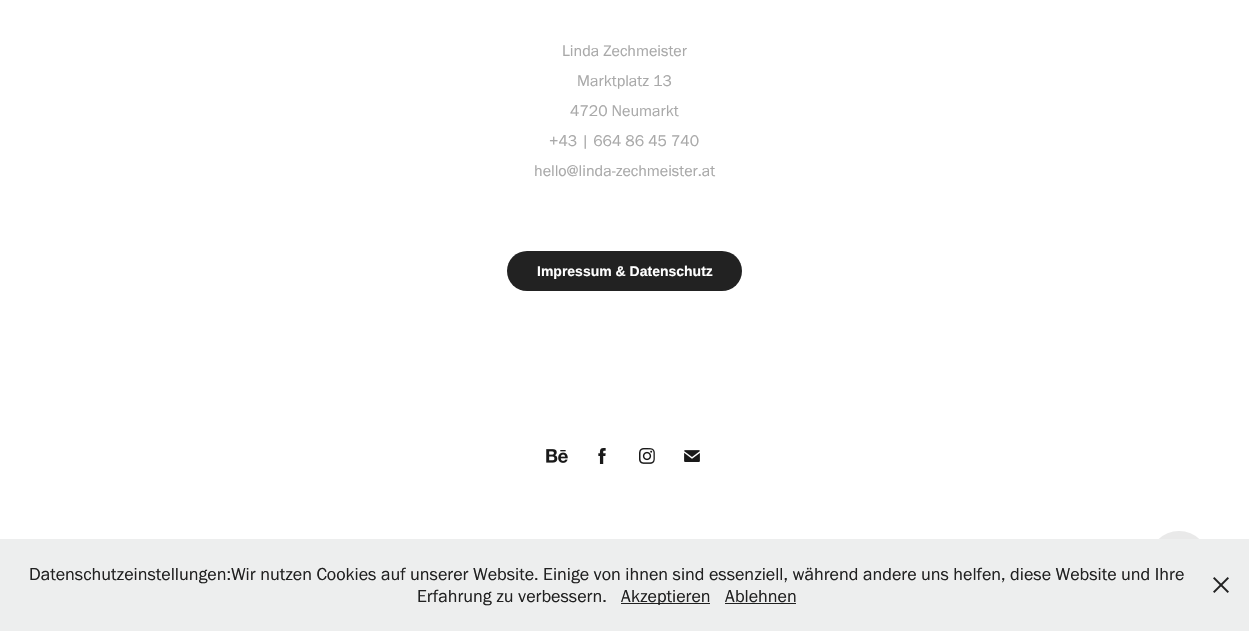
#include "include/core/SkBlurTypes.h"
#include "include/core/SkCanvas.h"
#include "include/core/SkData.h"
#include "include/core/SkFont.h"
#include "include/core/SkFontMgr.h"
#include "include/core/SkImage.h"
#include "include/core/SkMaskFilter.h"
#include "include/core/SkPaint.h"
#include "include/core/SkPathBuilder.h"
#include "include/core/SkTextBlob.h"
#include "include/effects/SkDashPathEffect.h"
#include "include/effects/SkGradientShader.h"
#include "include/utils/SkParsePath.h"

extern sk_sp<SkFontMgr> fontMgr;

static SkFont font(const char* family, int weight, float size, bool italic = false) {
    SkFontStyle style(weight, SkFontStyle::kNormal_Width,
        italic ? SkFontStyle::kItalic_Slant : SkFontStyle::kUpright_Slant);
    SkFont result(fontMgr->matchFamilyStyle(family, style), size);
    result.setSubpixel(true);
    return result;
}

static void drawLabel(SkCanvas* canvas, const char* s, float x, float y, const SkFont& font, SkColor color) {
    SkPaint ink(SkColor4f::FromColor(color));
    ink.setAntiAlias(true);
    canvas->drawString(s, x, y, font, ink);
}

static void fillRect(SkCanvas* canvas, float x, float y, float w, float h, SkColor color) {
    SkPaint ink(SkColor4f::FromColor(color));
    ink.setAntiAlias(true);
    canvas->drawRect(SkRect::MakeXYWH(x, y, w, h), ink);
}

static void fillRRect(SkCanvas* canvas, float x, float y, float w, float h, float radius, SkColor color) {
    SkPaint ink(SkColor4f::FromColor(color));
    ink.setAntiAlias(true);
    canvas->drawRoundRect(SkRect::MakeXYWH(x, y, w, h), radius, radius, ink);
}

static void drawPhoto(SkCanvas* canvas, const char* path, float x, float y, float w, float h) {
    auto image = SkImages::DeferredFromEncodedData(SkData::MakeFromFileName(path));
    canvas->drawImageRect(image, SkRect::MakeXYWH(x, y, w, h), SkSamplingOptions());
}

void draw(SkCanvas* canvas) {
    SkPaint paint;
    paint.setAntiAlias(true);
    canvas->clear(0xFFFFFFFF);
    SkFont font1 = font("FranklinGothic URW", 400, 16);
    drawLabel(canvas, "Linda Zechmeister", 562, 56, font1, 0xFFA9A9A9);
    drawLabel(canvas, "Marktplatz 13", 577, 86, font1, 0xFFA9A9A9);
    drawLabel(canvas, "4720 Neumarkt", 570, 116, font1, 0xFFA9A9A9);
    drawLabel(canvas, "+43 | 664 86 45 740", 549, 146, font1, 0xFFA9A9A9);
    drawLabel(canvas, "hello@linda-zechmeister.at", 534, 176, font1, 0xFFA9A9A9);
    fillRRect(canvas, 507, 251, 235, 40, 20, 0xFF222222);
    SkFont font2 = font("Liberation Sans", 700, 14);
    drawLabel(canvas, "Impressum & Datenschutz", 537, 276, font2, 0xFFFFFFFF);
    paint.setColor(0xFFE9E9E9);
    canvas->drawCircle(1179, 561, 30, paint);
    drawPhoto(canvas, "assets/img1.png", 546, 449, 22, 14);
    drawPhoto(canvas, "assets/img2.png", 598, 448, 8, 16);
    drawPhoto(canvas, "assets/img3.png", 639, 448, 16, 16);
    drawPhoto(canvas, "assets/img4.png", 684, 450, 16, 12);
    fillRect(canvas, 0, 539, 1249, 92, 0xFFEDEEEE);
    SkFont font3 = font("FranklinGothic URW", 400, 18);
    drawLabel(canvas, "Datenschutzeinstellungen:Wir nutzen Cookies auf unserer Website. Einige von ihnen sind essenziell, während andere uns helfen, diese Website und Ihre", 29, 580, font3, 0xFF212121);
    drawLabel(canvas, "Erfahrung zu verbessern.", 417, 602, font3, 0xFF212121);
    fillRect(canvas, 621, 603, 89, 1, 0xFF212121);
    drawLabel(canvas, "Akzeptieren", 621, 602, font3, 0xFF212121);
    drawLabel(canvas, "Ablehnen", 725, 602, font3, 0xFF212121);
    fillRect(canvas, 725, 603, 71, 1, 0xFF212121);
    drawPhoto(canvas, "assets/img5.png", 1213, 577, 16, 16);
}
